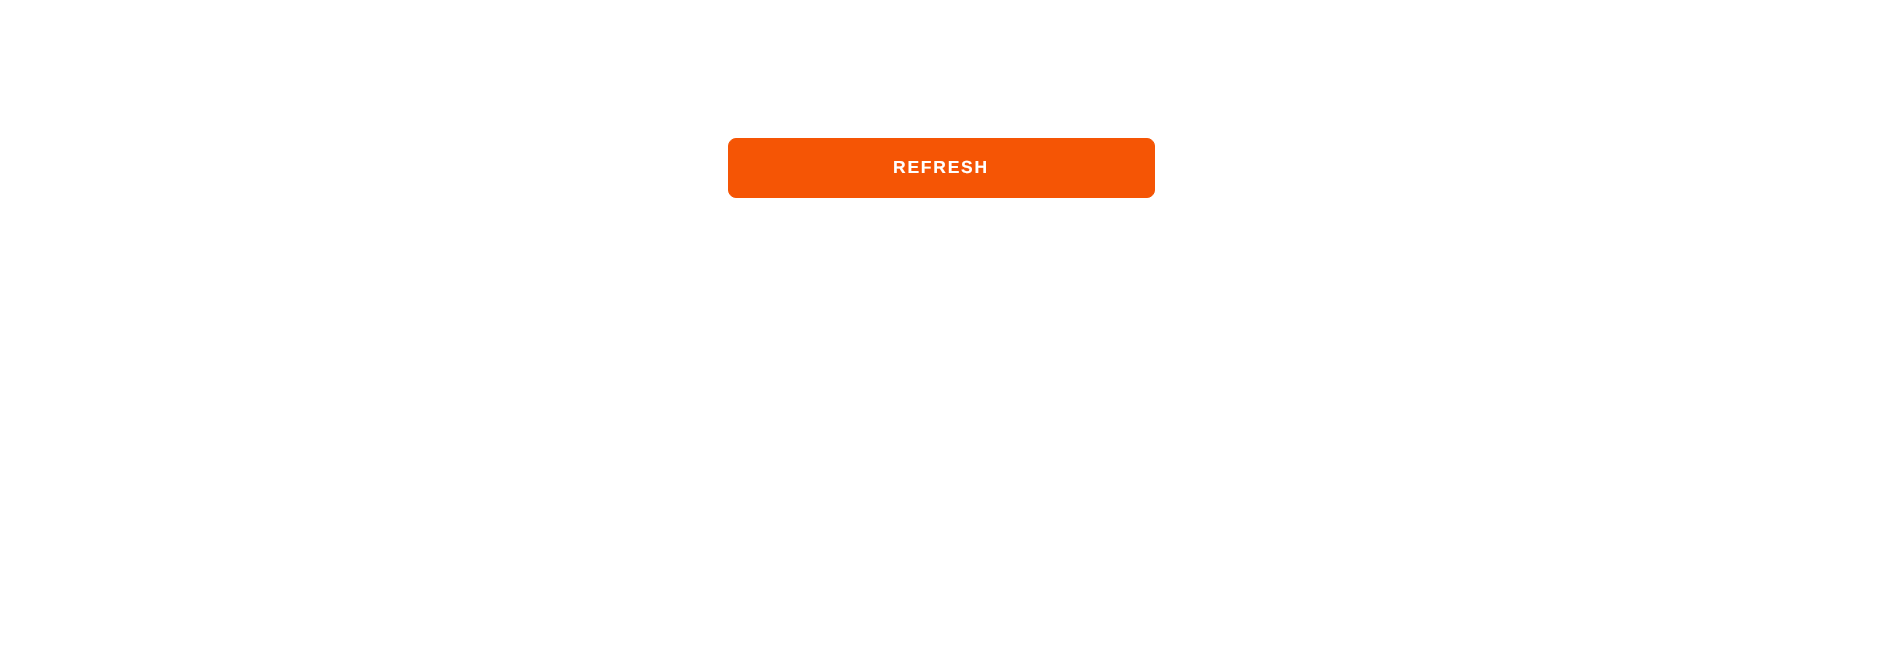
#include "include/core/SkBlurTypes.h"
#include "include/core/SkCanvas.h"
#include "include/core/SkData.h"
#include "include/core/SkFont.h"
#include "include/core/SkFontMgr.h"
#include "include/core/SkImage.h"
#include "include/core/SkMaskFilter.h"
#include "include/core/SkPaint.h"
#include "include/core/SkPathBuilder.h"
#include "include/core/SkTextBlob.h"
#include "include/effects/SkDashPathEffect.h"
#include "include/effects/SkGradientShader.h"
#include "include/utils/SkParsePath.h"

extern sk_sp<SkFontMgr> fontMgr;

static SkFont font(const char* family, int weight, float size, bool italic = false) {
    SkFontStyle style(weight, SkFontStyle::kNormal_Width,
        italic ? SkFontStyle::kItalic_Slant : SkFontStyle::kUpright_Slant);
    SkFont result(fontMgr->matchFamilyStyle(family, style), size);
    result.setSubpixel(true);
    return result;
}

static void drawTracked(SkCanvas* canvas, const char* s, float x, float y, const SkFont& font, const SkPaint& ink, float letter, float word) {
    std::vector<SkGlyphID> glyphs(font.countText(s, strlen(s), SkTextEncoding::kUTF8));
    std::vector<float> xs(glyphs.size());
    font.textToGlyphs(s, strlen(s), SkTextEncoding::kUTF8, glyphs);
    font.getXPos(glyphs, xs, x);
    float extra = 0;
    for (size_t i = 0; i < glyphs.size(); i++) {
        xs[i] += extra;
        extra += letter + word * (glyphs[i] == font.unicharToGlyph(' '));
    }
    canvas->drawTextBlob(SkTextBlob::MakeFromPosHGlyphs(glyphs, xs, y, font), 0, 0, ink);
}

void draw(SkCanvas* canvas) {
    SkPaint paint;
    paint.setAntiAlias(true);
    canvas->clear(0xFFFFFFFF);
    paint.setColor(0xFFF55505);
    canvas->drawRoundRect(SkRect::MakeXYWH(728.5f, 138.5f, 426, 59), 7.5f, 7.5f, paint);
    paint.setStroke(true);
    paint.setStrokeWidth(1);
    canvas->drawRoundRect(SkRect::MakeXYWH(728.5f, 138.5f, 426, 59), 7.5f, 7.5f, paint);
    SkFont font1 = font("Liberation Sans", 700, 17.5f);
    paint.setStroke(false);
    paint.setColor(0xFFFFFFFF);
    drawTracked(canvas, "REFRESH", 893, 173, font1, paint, 1.75f, 0);
}
